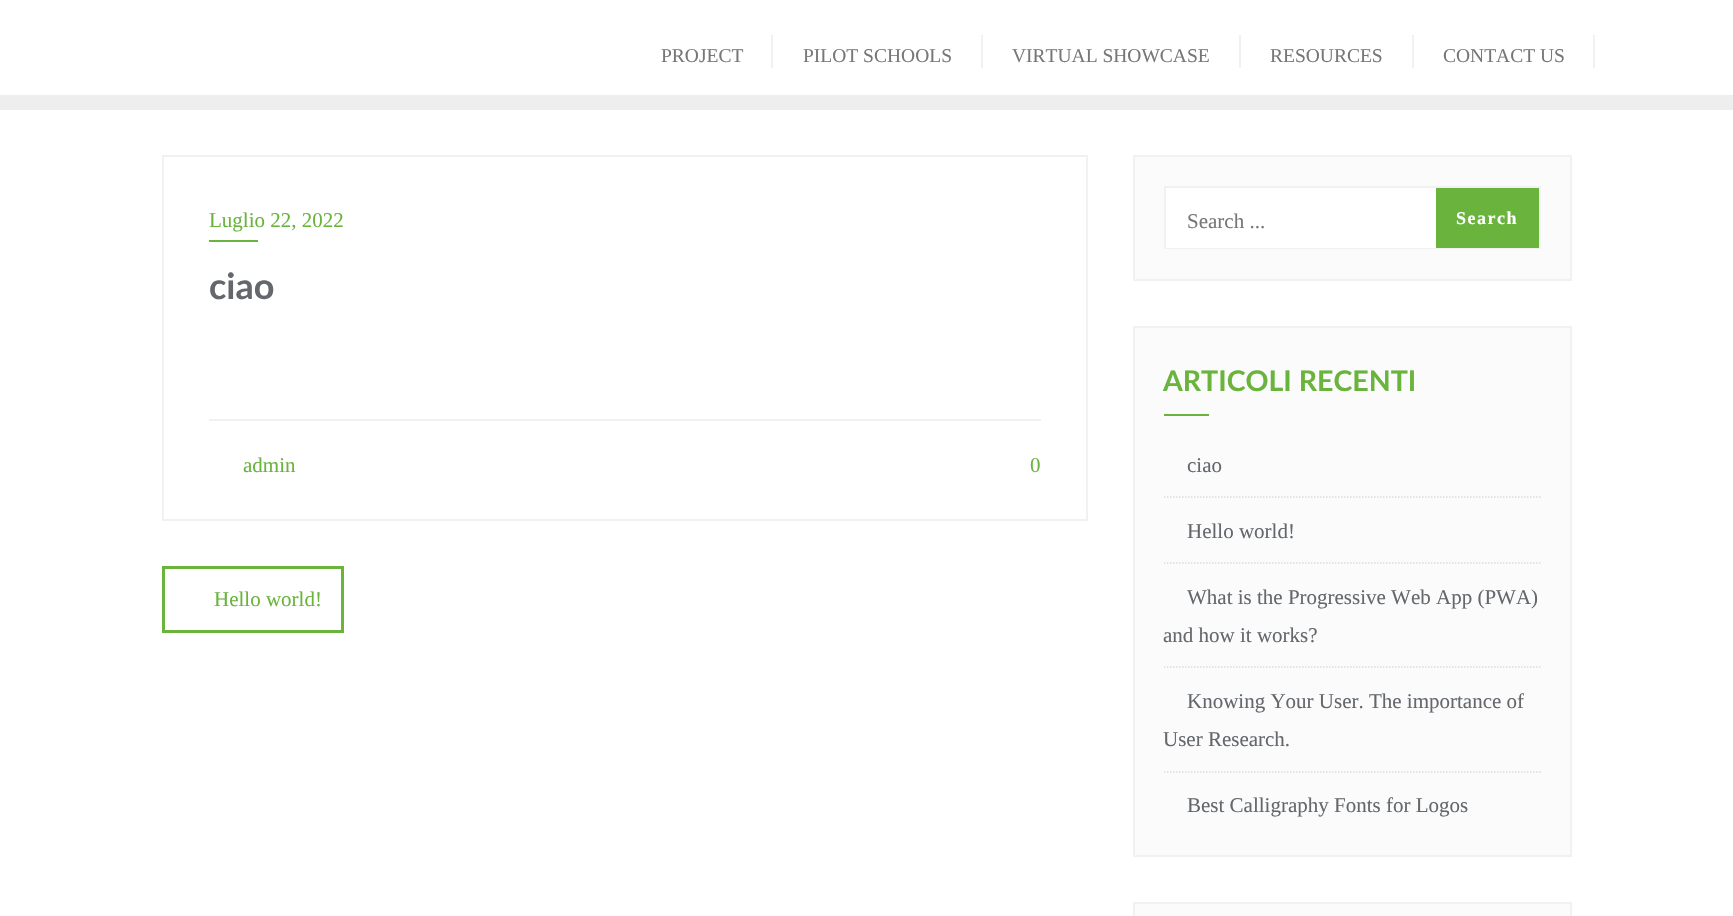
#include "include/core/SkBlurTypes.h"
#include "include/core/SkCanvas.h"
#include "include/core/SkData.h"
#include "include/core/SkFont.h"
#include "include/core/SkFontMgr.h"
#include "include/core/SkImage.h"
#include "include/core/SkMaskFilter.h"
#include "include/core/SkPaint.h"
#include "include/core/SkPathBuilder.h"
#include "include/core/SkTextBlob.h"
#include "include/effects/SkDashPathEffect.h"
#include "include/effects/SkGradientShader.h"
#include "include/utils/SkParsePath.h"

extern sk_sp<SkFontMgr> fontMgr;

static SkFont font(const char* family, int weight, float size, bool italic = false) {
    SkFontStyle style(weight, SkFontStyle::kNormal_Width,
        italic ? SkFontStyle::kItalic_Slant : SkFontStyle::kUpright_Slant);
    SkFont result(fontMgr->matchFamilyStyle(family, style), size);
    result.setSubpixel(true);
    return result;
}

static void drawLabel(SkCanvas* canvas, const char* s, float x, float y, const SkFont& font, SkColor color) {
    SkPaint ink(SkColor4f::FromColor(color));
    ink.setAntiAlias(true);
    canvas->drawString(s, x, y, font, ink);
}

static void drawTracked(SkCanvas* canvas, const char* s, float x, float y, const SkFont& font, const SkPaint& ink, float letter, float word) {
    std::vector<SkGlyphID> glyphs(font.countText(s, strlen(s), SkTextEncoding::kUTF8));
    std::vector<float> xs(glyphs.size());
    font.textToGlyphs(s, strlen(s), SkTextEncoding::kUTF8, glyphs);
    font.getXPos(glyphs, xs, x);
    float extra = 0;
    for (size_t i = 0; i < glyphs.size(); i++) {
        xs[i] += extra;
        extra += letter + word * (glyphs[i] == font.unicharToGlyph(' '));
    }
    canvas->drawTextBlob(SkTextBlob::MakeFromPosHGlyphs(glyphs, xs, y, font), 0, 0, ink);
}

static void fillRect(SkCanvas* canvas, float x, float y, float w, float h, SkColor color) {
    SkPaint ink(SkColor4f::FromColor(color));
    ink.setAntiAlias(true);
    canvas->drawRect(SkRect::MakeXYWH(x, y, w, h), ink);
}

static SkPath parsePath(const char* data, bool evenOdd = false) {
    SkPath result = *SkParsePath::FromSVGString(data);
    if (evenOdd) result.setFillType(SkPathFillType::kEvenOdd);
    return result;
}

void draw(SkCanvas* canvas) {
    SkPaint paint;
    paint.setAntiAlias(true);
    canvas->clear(0xFFFFFFFF);
    fillRect(canvas, 0, 95, 1733, 15, 0xFFEEEEEE);
    SkFont font1 = font("Liberation Serif", 400, 19.5f);
    drawLabel(canvas, "PROJECT", 661, 62, font1, 0xFF777777);
    fillRect(canvas, 771, 35, 2, 33, 0xFFF1F1F1);
    drawLabel(canvas, "PILOT SCHOOLS", 803, 62, font1, 0xFF777777);
    fillRect(canvas, 981, 35, 2, 33, 0xFFF1F1F1);
    drawLabel(canvas, "VIRTUAL SHOWCASE", 1012, 62, font1, 0xFF777777);
    fillRect(canvas, 1239, 35, 2, 33, 0xFFF1F1F1);
    drawLabel(canvas, "RESOURCES", 1270, 62, font1, 0xFF777777);
    fillRect(canvas, 1412, 35, 2, 33, 0xFFF1F1F1);
    drawLabel(canvas, "CONTACT US", 1443, 62, font1, 0xFF777777);
    fillRect(canvas, 1593, 35, 2, 33, 0xFFF1F1F1);
    paint.setStroke(true);
    paint.setStrokeWidth(2);
    paint.setColor(0xFFF1F1F1);
    canvas->drawRect(SkRect::MakeXYWH(163, 156, 924, 364), paint);
    SkFont font2 = font("Liberation Serif", 400, 21);
    drawLabel(canvas, "Luglio 22, 2022", 209, 227, font2, 0xFF6AB43E);
    fillRect(canvas, 209, 240, 49, 2, 0xFF6AB43E);
    SkFont font3 = font("Lato", 700, 36);
    drawLabel(canvas, "ciao", 209, 299, font3, 0xFF64686D);
    fillRect(canvas, 209, 419, 832, 2, 0xFFF1F1F1);
    drawLabel(canvas, "admin", 243, 472, font2, 0xFF6AB43E);
    drawLabel(canvas, "0", 1030, 472, font2, 0xFF6AB43E);
    paint.setStrokeWidth(3);
    paint.setColor(0xFF6AB43E);
    canvas->drawRect(SkRect::MakeXYWH(163.5f, 567.5f, 179, 64), paint);
    drawLabel(canvas, "Hello world!", 214, 606, font2, 0xFF6AB43E);
    paint.setStroke(false);
    paint.setColor(0xFFFBFBFB);
    canvas->drawRect(SkRect::MakeXYWH(1134, 156, 437, 124), paint);
    paint.setStroke(true);
    paint.setStrokeWidth(2);
    paint.setColor(0xFFF1F1F1);
    canvas->drawRect(SkRect::MakeXYWH(1134, 156, 437, 124), paint);
    canvas->drawRect(SkRect::MakeXYWH(1165, 187, 375, 61), paint);
    fillRect(canvas, 1166, 188, 270, 60, 0xFFFFFFFF);
    drawLabel(canvas, "Search ...", 1187, 228, font2, 0xFF777777);
    fillRect(canvas, 1436, 188, 103, 60, 0xFF6AB43E);
    SkFont font4 = font("Liberation Serif", 700, 18);
    paint.setStroke(false);
    paint.setColor(0xFFFFFFFF);
    drawTracked(canvas, "Search", 1456, 224, font4, paint, 1.5f, 0);
    paint.setColor(0xFFFBFBFB);
    canvas->drawRect(SkRect::MakeXYWH(1134, 327, 437, 529), paint);
    paint.setStroke(true);
    paint.setColor(0xFFF1F1F1);
    canvas->drawRect(SkRect::MakeXYWH(1134, 327, 437, 529), paint);
    SkFont font5 = font("Lato", 700, 28.5f);
    drawLabel(canvas, "ARTICOLI RECENTI", 1163, 391, font5, 0xFF6AB43E);
    fillRect(canvas, 1164, 414, 45, 2, 0xFF6AB43E);
    paint.setStrokeWidth(1.5f);
    paint.setColor(0xFFDBDBDB);
    paint.setPathEffect(SkDashPathEffect::Make({{1.5f, 1.5f}}, 0));
    canvas->drawPath(parsePath("M1164 497H1540.5"), paint);
    paint.setPathEffect(nullptr);
    drawLabel(canvas, "ciao", 1187, 472, font2, 0xFF64686D);
    paint.setPathEffect(SkDashPathEffect::Make({{1.5f, 1.5f}}, 0));
    canvas->drawPath(parsePath("M1164 563H1540.5"), paint);
    paint.setPathEffect(nullptr);
    drawLabel(canvas, "Hello world!", 1187, 538, font2, 0xFF64686D);
    paint.setPathEffect(SkDashPathEffect::Make({{1.5f, 1.5f}}, 0));
    canvas->drawPath(parsePath("M1164 667H1540.5"), paint);
    paint.setPathEffect(nullptr);
    drawLabel(canvas, "What is the Progressive Web App (PWA)", 1187, 604, font2, 0xFF64686D);
    drawLabel(canvas, "and how it works?", 1163, 642, font2, 0xFF64686D);
    paint.setPathEffect(SkDashPathEffect::Make({{1.5f, 1.5f}}, 0));
    canvas->drawPath(parsePath("M1164 772H1540.5"), paint);
    paint.setPathEffect(nullptr);
    drawLabel(canvas, "Knowing Your User. The importance of", 1187, 708, font2, 0xFF64686D);
    drawLabel(canvas, "User Research.", 1163, 746, font2, 0xFF64686D);
    drawLabel(canvas, "Best Calligraphy Fonts for Logos", 1187, 812, font2, 0xFF64686D);
    paint.setStroke(false);
    paint.setColor(0xFFFBFBFB);
    canvas->drawRect(SkRect::MakeXYWH(1134, 903, 437, 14), paint);
    paint.setStroke(true);
    paint.setStrokeWidth(2);
    paint.setColor(0xFFF1F1F1);
    canvas->drawRect(SkRect::MakeXYWH(1134, 903, 437, 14), paint);
}
